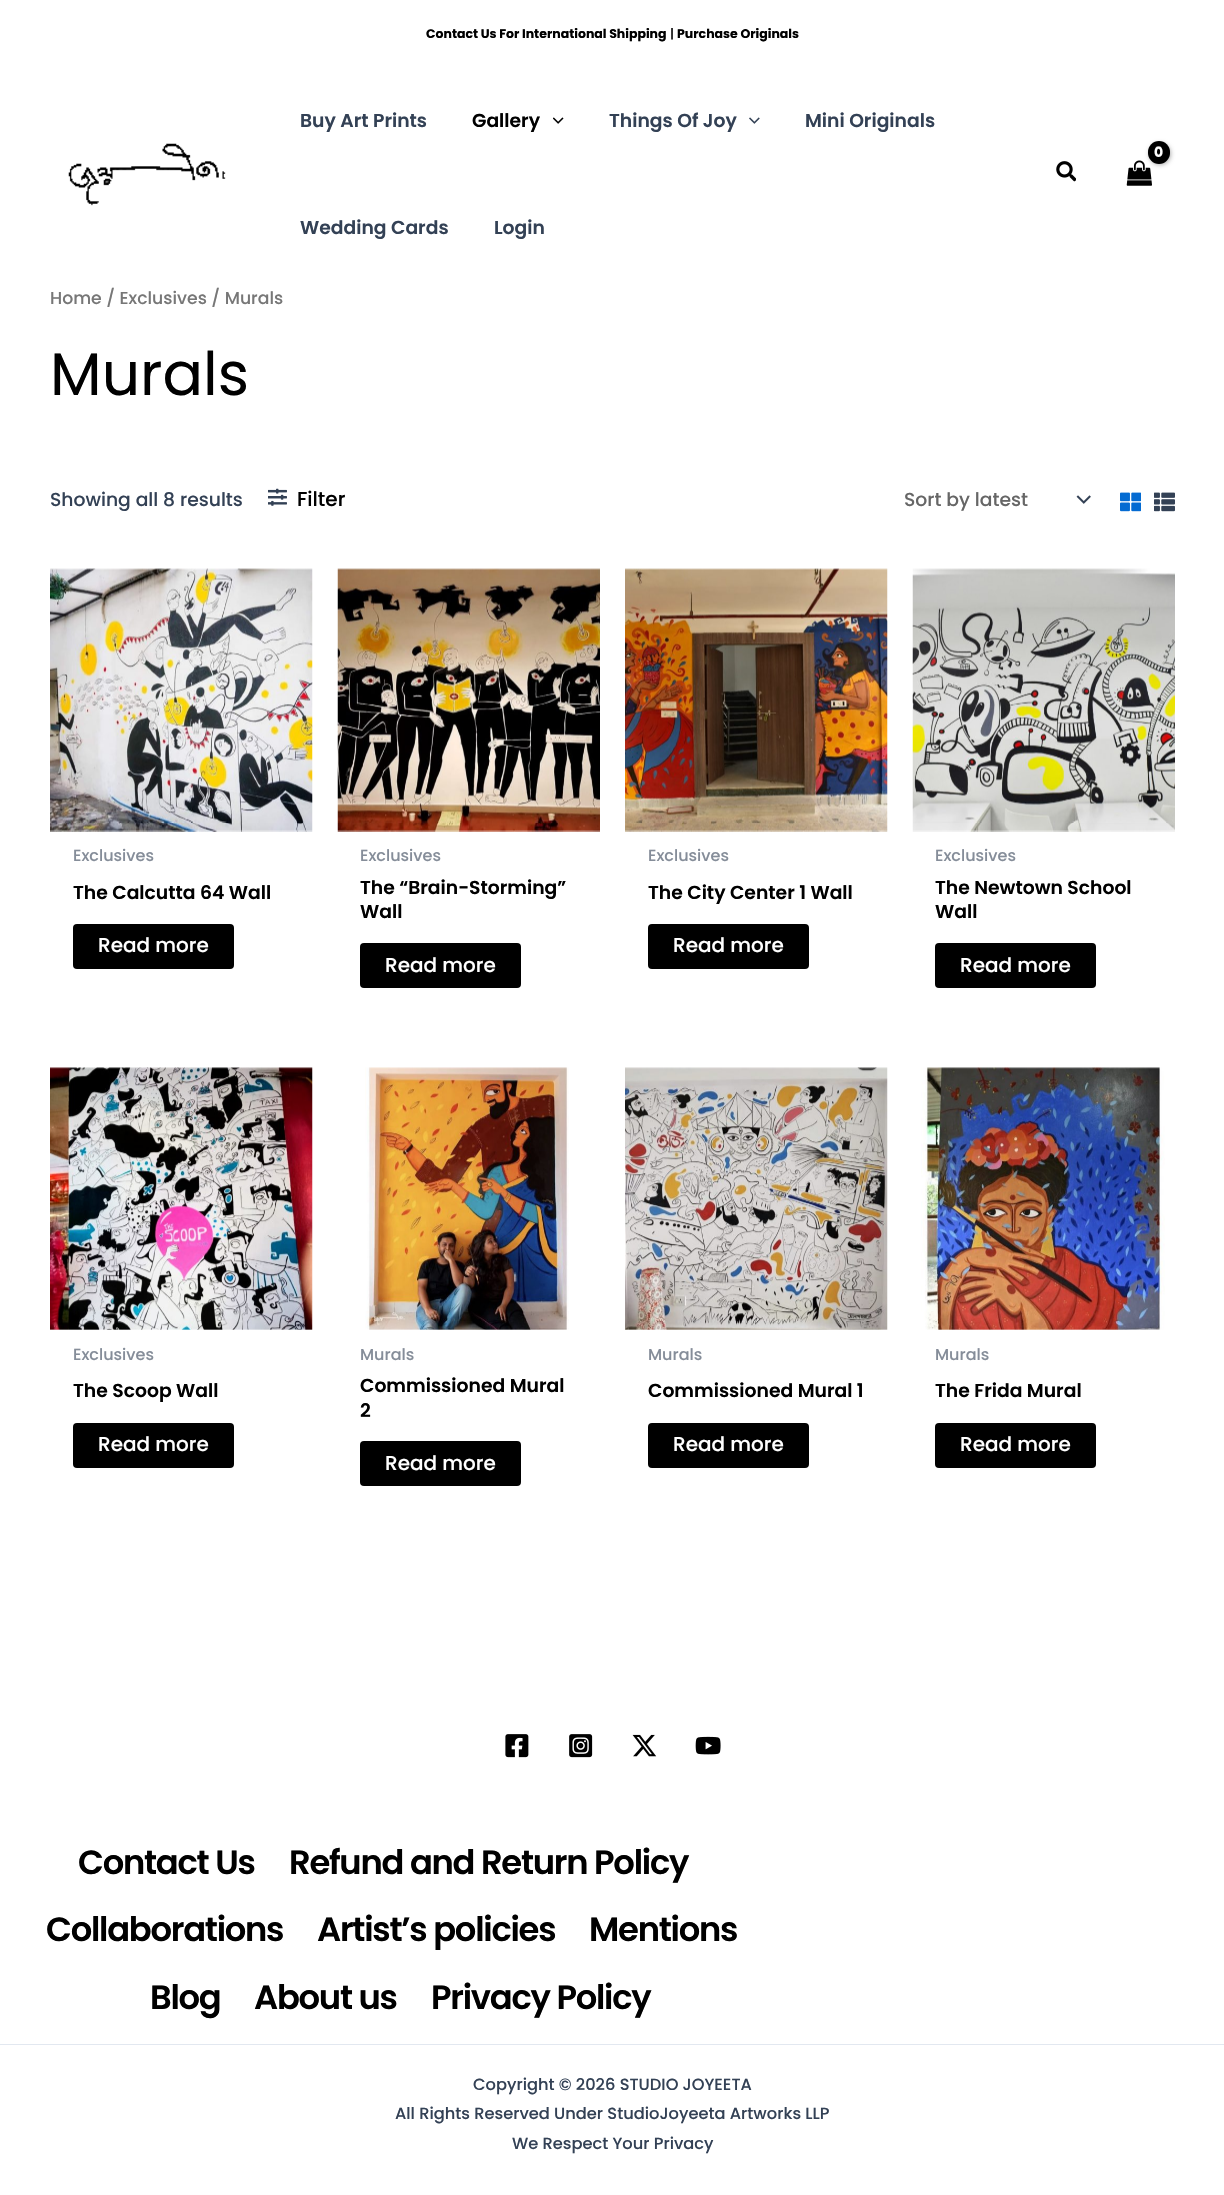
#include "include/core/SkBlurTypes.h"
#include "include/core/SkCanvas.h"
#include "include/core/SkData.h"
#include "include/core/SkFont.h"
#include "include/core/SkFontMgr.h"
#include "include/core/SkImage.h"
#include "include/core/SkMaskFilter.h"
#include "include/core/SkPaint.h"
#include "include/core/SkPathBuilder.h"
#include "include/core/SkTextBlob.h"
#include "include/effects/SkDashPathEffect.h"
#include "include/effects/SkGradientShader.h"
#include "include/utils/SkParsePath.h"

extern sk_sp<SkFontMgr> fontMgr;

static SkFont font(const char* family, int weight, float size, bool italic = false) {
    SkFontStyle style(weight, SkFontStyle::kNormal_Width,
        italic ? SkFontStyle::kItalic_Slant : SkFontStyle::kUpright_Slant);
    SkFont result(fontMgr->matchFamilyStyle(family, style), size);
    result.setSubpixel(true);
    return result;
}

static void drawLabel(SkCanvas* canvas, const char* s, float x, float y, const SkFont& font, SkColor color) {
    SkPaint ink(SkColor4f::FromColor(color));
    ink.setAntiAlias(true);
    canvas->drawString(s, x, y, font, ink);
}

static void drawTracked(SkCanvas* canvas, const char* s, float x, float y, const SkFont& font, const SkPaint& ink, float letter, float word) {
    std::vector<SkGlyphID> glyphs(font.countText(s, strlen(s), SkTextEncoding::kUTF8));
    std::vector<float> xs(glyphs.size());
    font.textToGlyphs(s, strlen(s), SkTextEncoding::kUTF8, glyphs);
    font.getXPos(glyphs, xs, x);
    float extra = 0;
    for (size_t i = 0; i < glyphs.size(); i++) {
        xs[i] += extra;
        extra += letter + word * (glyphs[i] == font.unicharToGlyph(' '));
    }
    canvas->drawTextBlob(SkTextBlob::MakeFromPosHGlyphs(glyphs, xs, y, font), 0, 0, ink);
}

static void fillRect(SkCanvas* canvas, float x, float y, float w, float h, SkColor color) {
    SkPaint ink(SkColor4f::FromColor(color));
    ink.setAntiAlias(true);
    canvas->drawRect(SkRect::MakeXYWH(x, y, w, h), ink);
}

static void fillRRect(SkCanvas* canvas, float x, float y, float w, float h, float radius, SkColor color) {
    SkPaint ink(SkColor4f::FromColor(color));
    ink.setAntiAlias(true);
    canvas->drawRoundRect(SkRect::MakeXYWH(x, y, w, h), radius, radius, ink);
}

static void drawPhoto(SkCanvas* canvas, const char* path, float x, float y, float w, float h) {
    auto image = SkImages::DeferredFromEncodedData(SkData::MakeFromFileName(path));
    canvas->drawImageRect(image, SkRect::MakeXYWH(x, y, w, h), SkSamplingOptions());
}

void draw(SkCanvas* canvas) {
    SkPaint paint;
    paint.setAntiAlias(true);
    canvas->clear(0xFFFFFFFF);
    SkFont font1 = font("Poppins", 700, 12.5f);
    drawLabel(canvas, "Contact Us For International Shipping", 426, 38, font1, 0xFF000000);
    SkFont font2 = font("Poppins", 500, 12.5f);
    drawLabel(canvas, "|", 670, 38, font2, 0xFF000000);
    drawLabel(canvas, "Purchase Originals", 677, 38, font1, 0xFF000000);
    drawPhoto(canvas, "assets/img1.png", 68, 143, 158, 63);
    SkFont font3 = font("Poppins", 600, 18.75f);
    drawLabel(canvas, "Buy Art Prints", 300, 127, font3, 0xFF334155);
    drawLabel(canvas, "Gallery", 472, 127, font3, 0xFF000000);
    drawPhoto(canvas, "assets/img2.png", 553, 117, 11, 7);
    drawLabel(canvas, "Things Of Joy", 609, 127, font3, 0xFF334155);
    drawPhoto(canvas, "assets/img3.png", 749, 117, 11, 7);
    drawLabel(canvas, "Mini Originals", 805, 127, font3, 0xFF334155);
    drawLabel(canvas, "Wedding Cards", 300, 234, font3, 0xFF334155);
    drawLabel(canvas, "Login", 494, 234, font3, 0xFF334155);
    drawPhoto(canvas, "assets/img4.png", 1126, 160, 26, 26);
    paint.setColor(0x4D000000);
    paint.setMaskFilter(SkMaskFilter::MakeBlur(kNormal_SkBlurStyle, 2));
    canvas->drawRoundRect(SkRect::MakeXYWH(1149, 143, 22, 22), 11, 11, paint);
    paint.setMaskFilter(nullptr);
    fillRRect(canvas, 1148, 141, 22, 23, 11, 0xFF000000);
    SkFont font4 = font("Poppins", 700, 14);
    paint.setColor(0xFFFFFFFF);
    drawTracked(canvas, "0", 1154, 157, font4, paint, -1, 0);
    drawPhoto(canvas, "assets/img5.png", 1056, 161, 20, 21);
    SkFont font5 = font("Poppins", 500, 17.25f);
    drawLabel(canvas, "Home / Exclusives / Murals", 50, 304, font5, 0xFF777777);
    SkFont font6 = font("Poppins", 400, 60);
    drawLabel(canvas, "Murals", 50, 395, font6, 0xFF000000);
    SkFont font7 = font("Poppins", 500, 18.75f);
    drawLabel(canvas, "Showing all 8 results", 50, 506, font7, 0xFF334155);
    drawPhoto(canvas, "assets/img6.png", 268, 488, 19, 18);
    SkFont font8 = font("Poppins", 500, 20);
    drawLabel(canvas, "Filter", 297, 506, font8, 0xFF000000);
    drawPhoto(canvas, "assets/img7.png", 1076, 495, 15, 9);
    drawLabel(canvas, "Sort by latest", 904, 506, font7, 0xFF666666);
    drawPhoto(canvas, "assets/img8.png", 1120, 492, 21, 20);
    drawPhoto(canvas, "assets/img9.png", 1154, 492, 21, 20);
    drawPhoto(canvas, "assets/img10.png", 50, 568, 263, 264);
    SkFont font9 = font("Poppins", 500, 16);
    drawLabel(canvas, "Exclusives", 73, 861, font9, 0xFF858D99);
    drawLabel(canvas, "The Calcutta 64 Wall", 73, 899, font3, 0xFF000000);
    fillRRect(canvas, 73, 924, 161, 45, 4, 0xFF000000);
    drawLabel(canvas, "Read more", 98, 952, font8, 0xFFFFFFFF);
    drawPhoto(canvas, "assets/img11.png", 337, 568, 263, 264);
    drawLabel(canvas, "Exclusives", 360, 861, font9, 0xFF858D99);
    drawLabel(canvas, "The “Brain-Storming”", 360, 894, font3, 0xFF000000);
    drawLabel(canvas, "Wall", 360, 918, font3, 0xFF000000);
    fillRRect(canvas, 360, 943, 161, 45, 4, 0xFF000000);
    drawLabel(canvas, "Read more", 385, 972, font8, 0xFFFFFFFF);
    drawPhoto(canvas, "assets/img12.png", 625, 568, 263, 264);
    drawLabel(canvas, "Exclusives", 648, 861, font9, 0xFF858D99);
    drawLabel(canvas, "The City Center 1 Wall", 648, 899, font3, 0xFF000000);
    fillRRect(canvas, 648, 924, 161, 45, 4, 0xFF000000);
    drawLabel(canvas, "Read more", 673, 952, font8, 0xFFFFFFFF);
    drawPhoto(canvas, "assets/img13.png", 912, 568, 263, 264);
    drawLabel(canvas, "Exclusives", 935, 861, font9, 0xFF858D99);
    drawLabel(canvas, "The Newtown School", 935, 894, font3, 0xFF000000);
    drawLabel(canvas, "Wall", 935, 918, font3, 0xFF000000);
    fillRRect(canvas, 935, 943, 161, 45, 4, 0xFF000000);
    drawLabel(canvas, "Read more", 960, 972, font8, 0xFFFFFFFF);
    drawPhoto(canvas, "assets/img14.png", 50, 1067, 263, 263);
    drawLabel(canvas, "Exclusives", 73, 1360, font9, 0xFF858D99);
    drawLabel(canvas, "The Scoop Wall", 73, 1397, font3, 0xFF000000);
    fillRRect(canvas, 73, 1423, 161, 45, 4, 0xFF000000);
    drawLabel(canvas, "Read more", 98, 1451, font8, 0xFFFFFFFF);
    drawPhoto(canvas, "assets/img15.png", 365, 1067, 204, 263);
    drawLabel(canvas, "Murals", 360, 1360, font9, 0xFF858D99);
    drawLabel(canvas, "Commissioned Mural", 360, 1392, font3, 0xFF000000);
    drawLabel(canvas, "2", 360, 1417, font3, 0xFF000000);
    fillRRect(canvas, 360, 1441, 161, 45, 4, 0xFF000000);
    drawLabel(canvas, "Read more", 385, 1470, font8, 0xFFFFFFFF);
    drawPhoto(canvas, "assets/img16.png", 625, 1067, 263, 263);
    drawLabel(canvas, "Murals", 648, 1360, font9, 0xFF858D99);
    drawLabel(canvas, "Commissioned Mural 1", 648, 1397, font3, 0xFF000000);
    fillRRect(canvas, 648, 1423, 161, 45, 4, 0xFF000000);
    drawLabel(canvas, "Read more", 673, 1451, font8, 0xFFFFFFFF);
    drawPhoto(canvas, "assets/img17.png", 921, 1067, 244, 263);
    drawLabel(canvas, "Murals", 935, 1360, font9, 0xFF858D99);
    drawLabel(canvas, "The Frida Mural", 935, 1397, font3, 0xFF000000);
    fillRRect(canvas, 935, 1423, 161, 45, 4, 0xFF000000);
    drawLabel(canvas, "Read more", 960, 1451, font8, 0xFFFFFFFF);
    drawPhoto(canvas, "assets/img18.png", 505, 1734, 24, 24);
    drawPhoto(canvas, "assets/img19.png", 569, 1734, 24, 24);
    drawPhoto(canvas, "assets/img20.png", 632, 1734, 25, 23);
    drawPhoto(canvas, "assets/img21.png", 695, 1736, 26, 19);
    SkFont font10 = font("Poppins", 600, 33.75f);
    paint.setColor(0xFF000000);
    drawTracked(canvas, "Contact Us", 78, 1874, font10, paint, -1.25f, 0);
    drawTracked(canvas, "Refund and Return Policy", 289, 1874, font10, paint, -1.25f, 0);
    drawTracked(canvas, "Collaborations", 46, 1941, font10, paint, -1.25f, 0);
    drawTracked(canvas, "Artist’s policies", 317, 1941, font10, paint, -1.25f, 0);
    drawTracked(canvas, "Mentions", 589, 1941, font10, paint, -1.25f, 0);
    drawTracked(canvas, "Blog", 150, 2009, font10, paint, -1.25f, 0);
    drawTracked(canvas, "About us", 254, 2009, font10, paint, -1.25f, 0);
    drawTracked(canvas, "Privacy Policy", 431, 2009, font10, paint, -1.25f, 0);
    fillRect(canvas, 0, 2044, 1224, 1, 0xFFE2E8F0);
    SkFont font11 = font("Poppins", 500, 16.25f);
    drawLabel(canvas, "Copyright © 2026 STUDIO JOYEETA", 473, 2090, font11, 0xFF334155);
    drawLabel(canvas, "All Rights Reserved Under StudioJoyeeta Artworks LLP", 395, 2119, font11, 0xFF334155);
    drawLabel(canvas, "We Respect Your Privacy", 512, 2149, font11, 0xFF334155);
}
